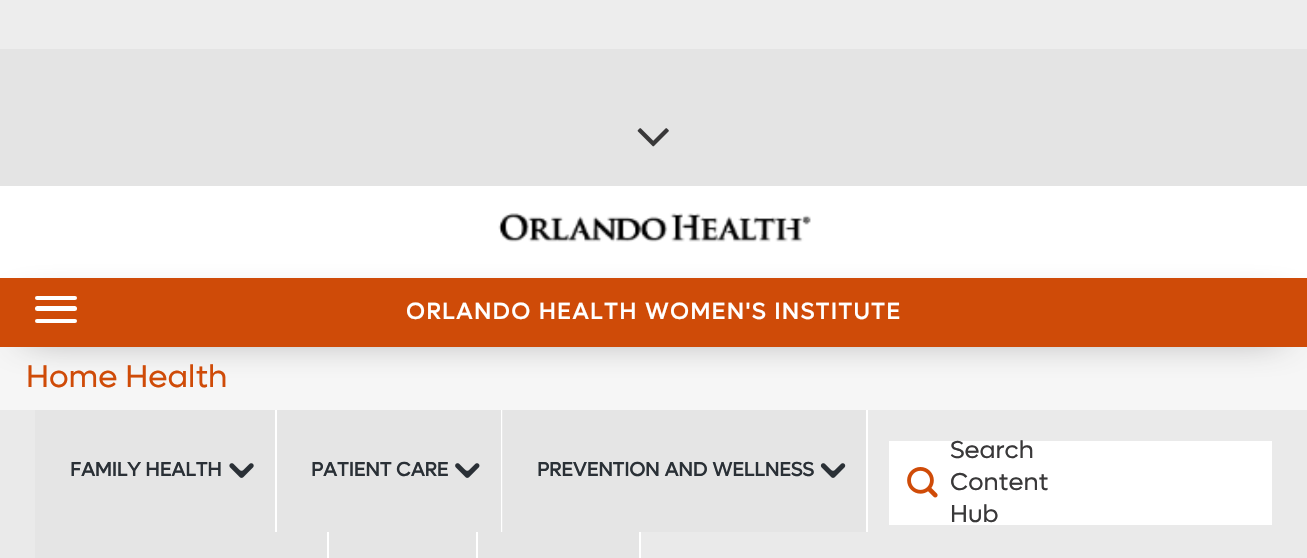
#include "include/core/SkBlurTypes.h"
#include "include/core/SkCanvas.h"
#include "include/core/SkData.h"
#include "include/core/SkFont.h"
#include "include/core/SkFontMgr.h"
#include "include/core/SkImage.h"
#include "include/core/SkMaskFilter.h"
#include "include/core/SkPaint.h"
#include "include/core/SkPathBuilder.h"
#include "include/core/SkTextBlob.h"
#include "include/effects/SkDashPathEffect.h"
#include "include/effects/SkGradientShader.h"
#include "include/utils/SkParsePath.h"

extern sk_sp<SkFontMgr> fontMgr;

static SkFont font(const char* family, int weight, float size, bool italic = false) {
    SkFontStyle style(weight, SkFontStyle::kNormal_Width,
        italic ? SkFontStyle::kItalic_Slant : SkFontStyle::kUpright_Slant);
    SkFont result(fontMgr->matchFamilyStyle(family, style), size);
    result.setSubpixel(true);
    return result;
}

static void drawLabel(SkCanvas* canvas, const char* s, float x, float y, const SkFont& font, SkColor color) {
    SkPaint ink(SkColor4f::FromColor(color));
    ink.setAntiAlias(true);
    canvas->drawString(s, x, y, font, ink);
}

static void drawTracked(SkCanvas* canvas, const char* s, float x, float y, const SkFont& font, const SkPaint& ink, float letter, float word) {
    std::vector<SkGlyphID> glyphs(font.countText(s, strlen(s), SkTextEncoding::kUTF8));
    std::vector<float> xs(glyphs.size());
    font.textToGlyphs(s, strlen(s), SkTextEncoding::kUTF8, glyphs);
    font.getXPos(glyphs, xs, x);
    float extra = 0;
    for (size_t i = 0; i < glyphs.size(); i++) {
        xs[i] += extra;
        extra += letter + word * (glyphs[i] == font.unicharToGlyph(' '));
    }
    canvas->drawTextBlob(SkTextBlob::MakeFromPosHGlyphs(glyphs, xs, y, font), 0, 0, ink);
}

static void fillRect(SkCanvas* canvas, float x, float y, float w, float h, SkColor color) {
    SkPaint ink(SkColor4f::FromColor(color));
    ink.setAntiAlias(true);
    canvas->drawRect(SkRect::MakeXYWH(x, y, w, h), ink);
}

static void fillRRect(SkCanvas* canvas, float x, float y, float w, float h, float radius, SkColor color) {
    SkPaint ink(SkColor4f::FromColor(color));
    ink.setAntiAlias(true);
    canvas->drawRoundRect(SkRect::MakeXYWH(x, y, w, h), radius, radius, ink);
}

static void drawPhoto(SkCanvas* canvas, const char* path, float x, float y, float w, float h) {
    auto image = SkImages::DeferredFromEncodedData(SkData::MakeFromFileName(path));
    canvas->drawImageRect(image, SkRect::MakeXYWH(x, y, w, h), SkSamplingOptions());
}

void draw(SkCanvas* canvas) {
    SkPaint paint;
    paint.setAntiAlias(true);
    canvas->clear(0xFFEAEAEA);
    fillRect(canvas, 0, 0, 1307, 49, 0xFFEDEDED);
    fillRect(canvas, 0, 49, 1307, 137, 0xFFE4E4E4);
    drawPhoto(canvas, "assets/img1.png", 637, 128, 32, 19);
    fillRect(canvas, 0, 186, 1307, 92, 0xFFFFFFFF);
    drawPhoto(canvas, "assets/img2.png", 498, 213, 313, 29);
    fillRect(canvas, 0, 347, 1307, 63, 0xFFF6F6F6);
    paint.setColor(0xFF393839);
    paint.setMaskFilter(SkMaskFilter::MakeBlur(kNormal_SkBlurStyle, 20));
    canvas->drawRect(SkRect::MakeXYWH(26, 313, 1255, 16), paint);
    paint.setMaskFilter(nullptr);
    fillRect(canvas, 0, 278, 1307, 69, 0xFFCF4B08);
    fillRRect(canvas, 35, 306, 42, 5, 2.5f, 0xFFFFFFFF);
    fillRRect(canvas, 35, 296, 42, 4, 2, 0xFFFFFFFF);
    fillRRect(canvas, 35, 319, 42, 4, 2, 0xFFFFFFFF);
    SkFont font1 = font("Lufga", 700, 22.75f);
    paint.setColor(0xFFFFFFFF);
    drawTracked(canvas, "ORLANDO HEALTH WOMEN'S INSTITUTE", 406, 319, font1, paint, 1.75f, 0);
    SkFont font2 = font("Lufga", 400, 31.5f);
    drawLabel(canvas, "Home Health", 26, 387, font2, 0xFFCF4B08);
    fillRect(canvas, 503, 410, 363, 122, 0xFFE5E5E5);
    fillRect(canvas, 275, 410, 2, 122, 0xFFFFFFFF);
    fillRect(canvas, 35, 410, 240, 122, 0xFFE5E5E5);
    SkFont font3 = font("Lufga", 700, 19.6f);
    drawLabel(canvas, "FAMILY HEALTH", 70, 476, font3, 0xFF2A3036);
    drawPhoto(canvas, "assets/img3.png", 229, 463, 25, 15);
    fillRect(canvas, 501, 410, 1, 122, 0xFFFFFFFF);
    fillRect(canvas, 277, 410, 224, 122, 0xFFE5E5E5);
    drawLabel(canvas, "PATIENT CARE", 311, 476, font3, 0xFF2A3036);
    drawPhoto(canvas, "assets/img4.png", 455, 463, 25, 15);
    fillRect(canvas, 866, 410, 2, 122, 0xFFFFFFFF);
    drawLabel(canvas, "PREVENTION AND WELLNESS", 537, 476, font3, 0xFF2A3036);
    drawPhoto(canvas, "assets/img5.png", 820, 463, 26, 15);
    fillRect(canvas, 327, 532, 2, 26, 0xFFFFFFFF);
    fillRect(canvas, 35, 532, 292, 26, 0xFFE5E5E5);
    fillRect(canvas, 476, 532, 2, 26, 0xFFFFFFFF);
    fillRect(canvas, 329, 532, 147, 26, 0xFFE5E5E5);
    fillRect(canvas, 639, 532, 2, 26, 0xFFFFFFFF);
    fillRect(canvas, 478, 532, 161, 26, 0xFFE5E5E5);
    fillRect(canvas, 889, 441, 383, 84, 0xFFFFFFFF);
    drawPhoto(canvas, "assets/img6.png", 907, 467, 31, 31);
    SkFont font4 = font("Lufga", 400, 24.5f);
    drawLabel(canvas, "Search", 950, 458, font4, 0xFF393839);
    drawLabel(canvas, "Content", 950, 490, font4, 0xFF393839);
    drawLabel(canvas, "Hub", 950, 522, font4, 0xFF393839);
}
